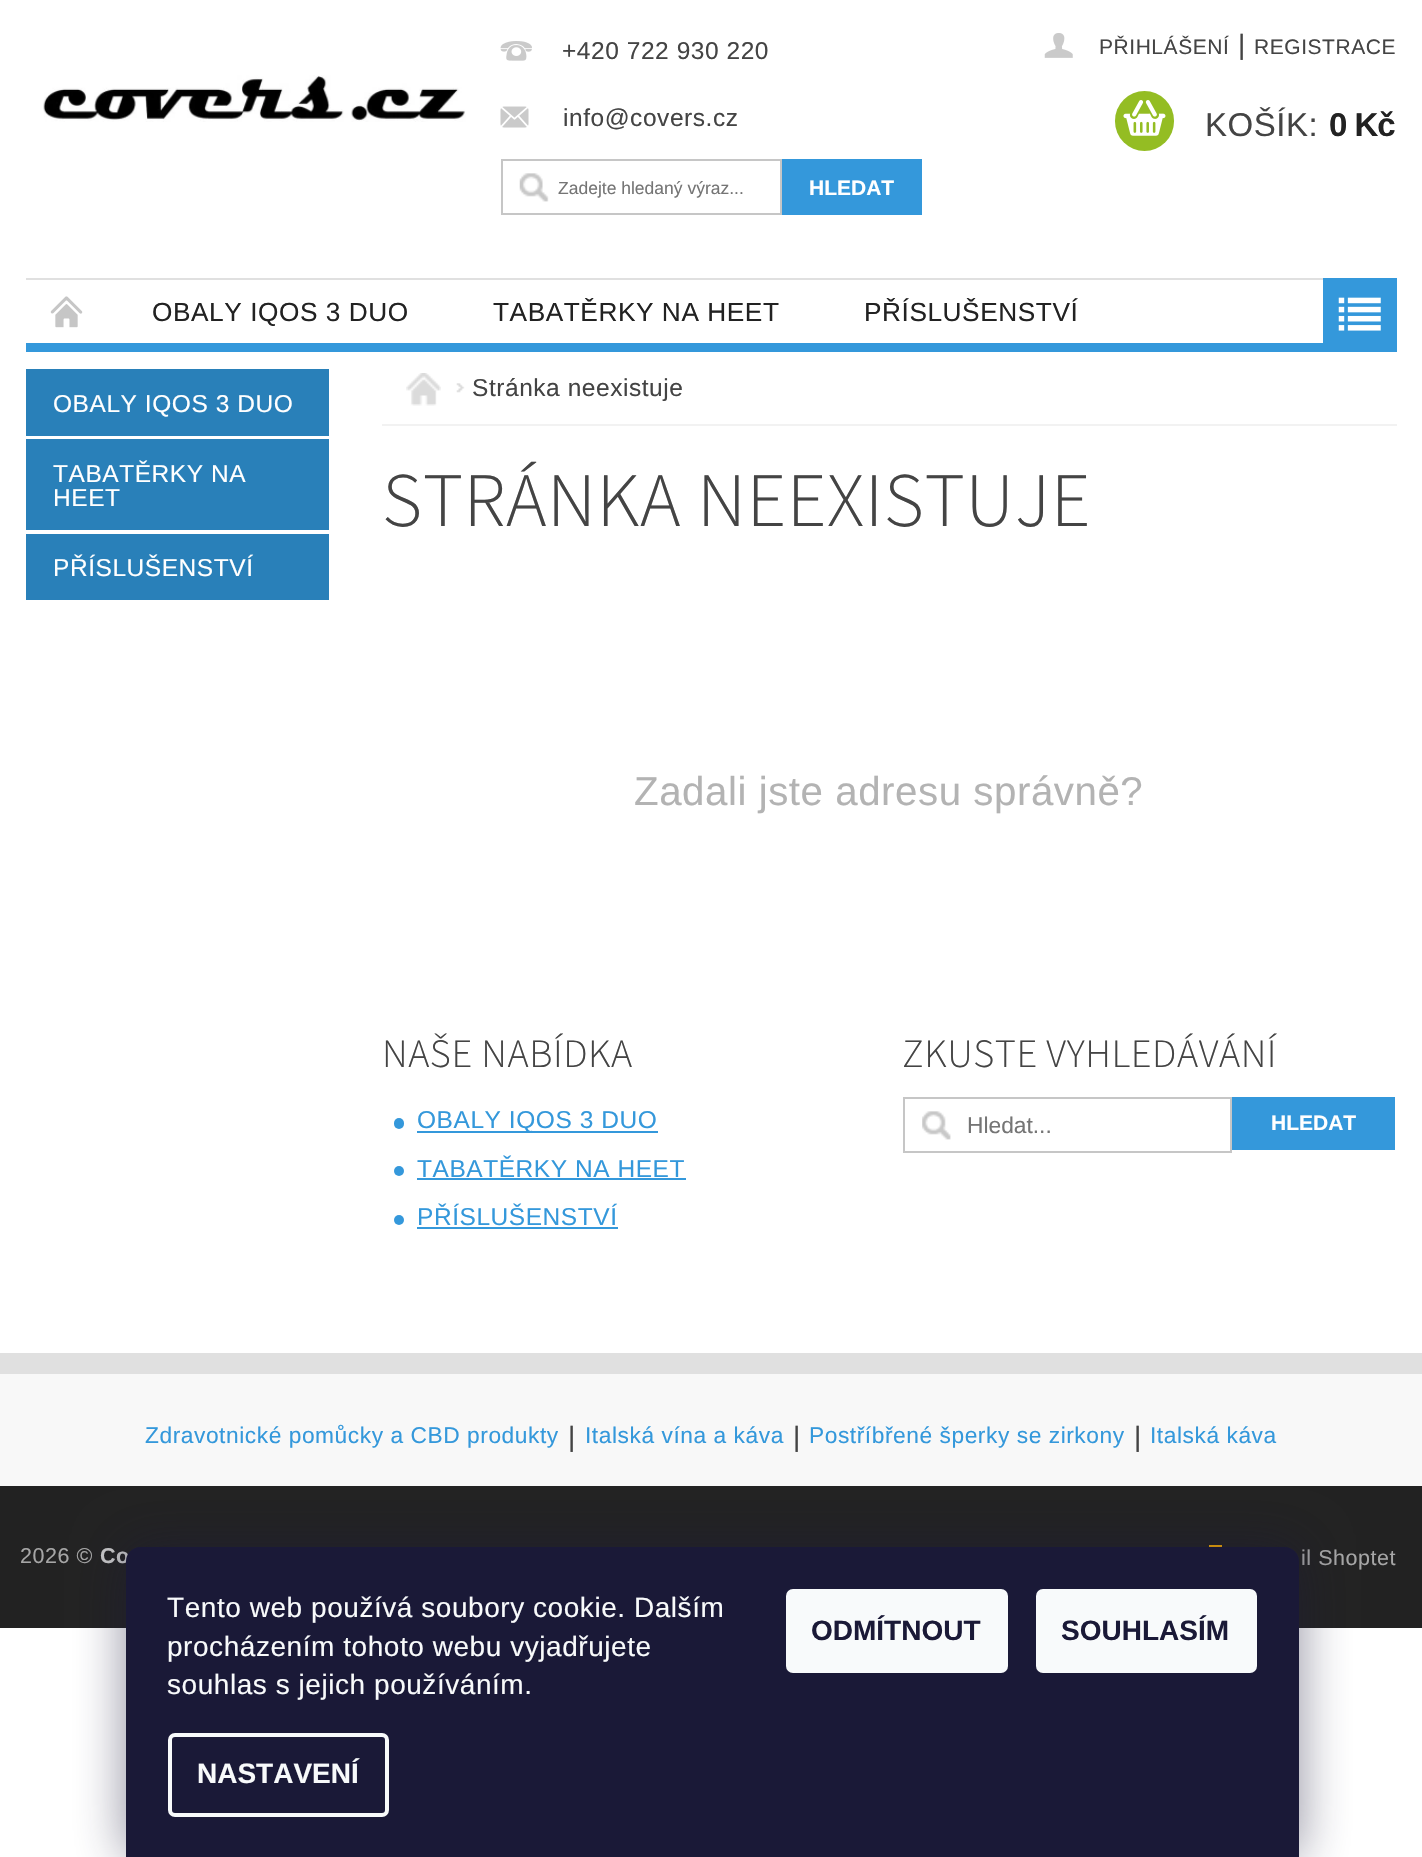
#include "include/core/SkBlurTypes.h"
#include "include/core/SkCanvas.h"
#include "include/core/SkData.h"
#include "include/core/SkFont.h"
#include "include/core/SkFontMgr.h"
#include "include/core/SkImage.h"
#include "include/core/SkMaskFilter.h"
#include "include/core/SkPaint.h"
#include "include/core/SkPathBuilder.h"
#include "include/core/SkTextBlob.h"
#include "include/effects/SkDashPathEffect.h"
#include "include/effects/SkGradientShader.h"
#include "include/utils/SkParsePath.h"

extern sk_sp<SkFontMgr> fontMgr;

static SkFont font(const char* family, int weight, float size, bool italic = false) {
    SkFontStyle style(weight, SkFontStyle::kNormal_Width,
        italic ? SkFontStyle::kItalic_Slant : SkFontStyle::kUpright_Slant);
    SkFont result(fontMgr->matchFamilyStyle(family, style), size);
    result.setSubpixel(true);
    return result;
}

static void drawLabel(SkCanvas* canvas, const char* s, float x, float y, const SkFont& font, SkColor color) {
    SkPaint ink(SkColor4f::FromColor(color));
    ink.setAntiAlias(true);
    canvas->drawString(s, x, y, font, ink);
}

static void drawTracked(SkCanvas* canvas, const char* s, float x, float y, const SkFont& font, const SkPaint& ink, float letter, float word) {
    std::vector<SkGlyphID> glyphs(font.countText(s, strlen(s), SkTextEncoding::kUTF8));
    std::vector<float> xs(glyphs.size());
    font.textToGlyphs(s, strlen(s), SkTextEncoding::kUTF8, glyphs);
    font.getXPos(glyphs, xs, x);
    float extra = 0;
    for (size_t i = 0; i < glyphs.size(); i++) {
        xs[i] += extra;
        extra += letter + word * (glyphs[i] == font.unicharToGlyph(' '));
    }
    canvas->drawTextBlob(SkTextBlob::MakeFromPosHGlyphs(glyphs, xs, y, font), 0, 0, ink);
}

static void fillRect(SkCanvas* canvas, float x, float y, float w, float h, SkColor color) {
    SkPaint ink(SkColor4f::FromColor(color));
    ink.setAntiAlias(true);
    canvas->drawRect(SkRect::MakeXYWH(x, y, w, h), ink);
}

static void fillRRect(SkCanvas* canvas, float x, float y, float w, float h, float radius, SkColor color) {
    SkPaint ink(SkColor4f::FromColor(color));
    ink.setAntiAlias(true);
    canvas->drawRoundRect(SkRect::MakeXYWH(x, y, w, h), radius, radius, ink);
}

static void drawPhoto(SkCanvas* canvas, const char* path, float x, float y, float w, float h) {
    auto image = SkImages::DeferredFromEncodedData(SkData::MakeFromFileName(path));
    canvas->drawImageRect(image, SkRect::MakeXYWH(x, y, w, h), SkSamplingOptions());
}

static SkPath parsePath(const char* data, bool evenOdd = false) {
    SkPath result = *SkParsePath::FromSVGString(data);
    if (evenOdd) result.setFillType(SkPathFillType::kEvenOdd);
    return result;
}

void draw(SkCanvas* canvas) {
    SkPaint paint;
    paint.setAntiAlias(true);
    canvas->clear(0xFFFFFFFF);
    fillRect(canvas, 26, 343, 1297, 9, 0xFF3498DB);
    drawPhoto(canvas, "assets/img1.png", 43, 75, 423, 47);
    drawPhoto(canvas, "assets/img2.png", 500, 41, 32, 20);
    SkFont font1 = font("Liberation Sans", 400, 24.5f);
    paint.setColor(0xFF444444);
    drawTracked(canvas, "+420 722 930 220", 562, 59, font1, paint, 0.55f, 0);
    drawPhoto(canvas, "assets/img3.png", 500, 106, 29, 22);
    drawTracked(canvas, "info@covers.cz", 563, 126, font1, paint, 0.55f, 0);
    drawPhoto(canvas, "assets/img4.png", 519, 173, 30, 29);
    paint.setStroke(true);
    paint.setStrokeWidth(2);
    paint.setColor(0xFFC6C6C6);
    canvas->drawRect(SkRect::MakeXYWH(502, 160, 279, 54), paint);
    SkFont font2 = font("Liberation Sans", 400, 17.5f);
    drawLabel(canvas, "Zadejte hledaný výraz...", 558, 194, font2, 0xFF757575);
    fillRect(canvas, 782, 159, 140, 56, 0xFF3498DB);
    SkFont font3 = font("Liberation Sans", 700, 21);
    drawLabel(canvas, "HLEDAT", 809, 195, font3, 0xFFFFFFFF);
    drawPhoto(canvas, "assets/img5.png", 1044, 33, 29, 25);
    SkFont font4 = font("Liberation Sans", 400, 21);
    paint.setStroke(false);
    paint.setColor(0xFF444444);
    drawTracked(canvas, "PŘIHLÁŠENÍ", 1099, 54, font4, paint, 0.55f, 0);
    SkFont font5 = font("Liberation Sans", 400, 28);
    drawTracked(canvas, "|", 1238, 54, font5, paint, 0.55f, 0);
    drawTracked(canvas, "REGISTRACE", 1254, 54, font4, paint, 0.55f, 0);
    fillRRect(canvas, 1115, 91, 59, 60, 29.5f, 0xFF94BD23);
    drawPhoto(canvas, "assets/img6.png", 1123, 100, 43, 36);
    SkFont font6 = font("Liberation Sans", 400, 33);
    drawTracked(canvas, "KOŠÍK:", 1205, 136, font6, paint, 0.55f, 0);
    SkFont font7 = font("Liberation Sans", 700, 33);
    paint.setColor(0xFF222222);
    drawTracked(canvas, "0 Kč", 1329, 136, font7, paint, -1, 0);
    fillRect(canvas, 26, 278, 1297, 2, 0xFFE0E0E0);
    drawPhoto(canvas, "assets/img7.png", 50, 296, 33, 32);
    SkFont font8 = font("Liberation Sans", 400, 26.25f);
    drawTracked(canvas, "OBALY IQOS 3 DUO", 152, 321, font8, paint, 0.55f, 0);
    drawTracked(canvas, "TABATĚRKY NA HEET", 493, 321, font8, paint, 0.55f, 0);
    drawTracked(canvas, "PŘÍSLUŠENSTVÍ", 864, 321, font8, paint, 0.55f, 0);
    fillRect(canvas, 1323, 278, 74, 74, 0xFF3498DB);
    drawPhoto(canvas, "assets/img8.png", 1338, 297, 43, 34);
    fillRect(canvas, 26, 369, 303, 67, 0xFF2980B9);
    paint.setColor(0xFFFFFFFF);
    drawTracked(canvas, "OBALY IQOS 3 DUO", 53, 412, font1, paint, 0.55f, 0);
    fillRect(canvas, 26, 439, 303, 91, 0xFF2980B9);
    drawTracked(canvas, "TABATĚRKY NA", 53, 482, font1, paint, 0.55f, 0);
    drawTracked(canvas, "HEET", 53, 506, font1, paint, 0.55f, 0);
    fillRect(canvas, 26, 534, 303, 66, 0xFF2980B9);
    drawTracked(canvas, "PŘÍSLUŠENSTVÍ", 53, 576, font1, paint, 0.55f, 0);
    fillRect(canvas, 382, 424, 1015, 2, 0xFFF2F2F2);
    drawPhoto(canvas, "assets/img9.png", 406, 373, 35, 33);
    drawPhoto(canvas, "assets/img10.png", 456, 383, 9, 10);
    paint.setColor(0xFF444444);
    drawTracked(canvas, "Stránka neexistuje", 472, 396, font1, paint, 0.55f, 0);
    SkFont font9 = font("Source Sans 3", 300, 77);
    drawTracked(canvas, "STRÁNKA NEEXISTUJE", 382, 526, font9, paint, 0.55f, 0);
    SkFont font10 = font("Liberation Sans", 400, 40.25f);
    paint.setColor(0xFFB3B3B3);
    drawTracked(canvas, "Zadali jste adresu správně?", 634, 805, font10, paint, 0.55f, 0);
    SkFont font11 = font("Source Sans 3", 300, 40.25f);
    paint.setColor(0xFF444444);
    drawTracked(canvas, "NAŠE NABÍDKA", 382, 1067, font11, paint, 0.55f, 0);
    fillRRect(canvas, 394, 1118, 10, 11, 5, 0xFF3498DB);
    fillRect(canvas, 417, 1131, 241, 2, 0xFF3498DB);
    paint.setColor(0xFF3498DB);
    drawTracked(canvas, "OBALY IQOS 3 DUO", 417, 1128, font1, paint, 0.55f, 0);
    canvas->drawCircle(399, 1171, 5, paint);
    drawTracked(canvas, "TABATĚRKY NA HEET", 417, 1177, font1, paint, 0.55f, 0);
    fillRect(canvas, 417, 1178, 269, 2, 0xFF3498DB);
    canvas->drawCircle(399, 1220, 5, paint);
    drawTracked(canvas, "PŘÍSLUŠENSTVÍ", 417, 1225, font1, paint, 0.55f, 0);
    fillRect(canvas, 417, 1227, 201, 2, 0xFF3498DB);
    paint.setColor(0xFF444444);
    drawTracked(canvas, "ZKUSTE VYHLEDÁVÁNÍ", 902, 1067, font11, paint, 0.55f, 0);
    drawPhoto(canvas, "assets/img11.png", 922, 1111, 29, 29);
    paint.setStroke(true);
    paint.setColor(0xFFC6C6C6);
    canvas->drawRect(SkRect::MakeXYWH(904, 1098, 327, 54), paint);
    SkFont font12 = font("Liberation Sans", 400, 22.75f);
    drawLabel(canvas, "Hledat...", 967, 1133, font12, 0xFF757575);
    fillRect(canvas, 1232, 1097, 163, 53, 0xFF3498DB);
    drawLabel(canvas, "HLEDAT", 1271, 1130, font3, 0xFFFFFFFF);
    fillRect(canvas, 0, 1374, 1422, 112, 0xFFF8F8F8);
    fillRect(canvas, 0, 1353, 1422, 21, 0xFFE0E0E0);
    paint.setStroke(false);
    paint.setColor(0xFF3498DB);
    drawTracked(canvas, "Zdravotnické pomůcky a CBD produkty", 145, 1443, font12, paint, 0.55f, 0);
    paint.setColor(0xFF444444);
    drawTracked(canvas, "|", 568, 1446, font5, paint, 0.55f, 0);
    paint.setColor(0xFF3498DB);
    drawTracked(canvas, "Italská vína a káva", 585, 1443, font12, paint, 0.55f, 0);
    paint.setColor(0xFF444444);
    drawTracked(canvas, "|", 793, 1446, font5, paint, 0.55f, 0);
    paint.setColor(0xFF3498DB);
    drawTracked(canvas, "Postříbřené šperky se zirkony", 809, 1443, font12, paint, 0.55f, 0);
    paint.setColor(0xFF444444);
    drawTracked(canvas, "|", 1134, 1446, font5, paint, 0.55f, 0);
    paint.setColor(0xFF3498DB);
    drawTracked(canvas, "Italská káva", 1150, 1443, font12, paint, 0.55f, 0);
    fillRect(canvas, 0, 1486, 1422, 142, 0xFF222222);
    SkFont font13 = font("Liberation Sans", 400, 21.5f);
    paint.setColor(0xFFA6A6A6);
    drawTracked(canvas, "2026 ©", 20, 1563, font13, paint, 0.55f, 0);
    SkFont font14 = font("Liberation Sans", 700, 21.5f);
    paint.setColor(0xFFC9C9C9);
    drawTracked(canvas, "Co", 100, 1563, font14, paint, 0.55f, 0);
    fillRect(canvas, 1209, 1545, 13, 2, 0xFFFCAF00);
    paint.setColor(0xFFA6A6A6);
    drawTracked(canvas, "il Shoptet", 1301, 1565, font13, paint, 0.55f, 0);
    paint.setColor(0x801B1939);
    paint.setMaskFilter(SkMaskFilter::MakeBlur(kNormal_SkBlurStyle, 26));
    canvas->drawRoundRect(SkRect::MakeXYWH(126, 1547, 1173, 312), 14, 14, paint);
    paint.setMaskFilter(nullptr);
    paint.setColor(0xFF1A1937);
    canvas->drawPath(parsePath("M140 1547H1285C1292.5 1547 1299 1553.5 1299 1561V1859H126V1561C126 1553.5 132.5 1547 140 1547Z"), paint);
    paint.setColor(0xFFF8FAFB);
    drawTracked(canvas, "Tento web používá soubory cookie. Dalším", 167, 1617, font5, paint, 0.55f, 0);
    drawTracked(canvas, "procházením tohoto webu vyjadřujete", 167, 1656, font5, paint, 0.55f, 0);
    drawTracked(canvas, "souhlas s jejich používáním.", 167, 1694, font5, paint, 0.55f, 0);
    paint.setStroke(true);
    paint.setStrokeWidth(4);
    canvas->drawRoundRect(SkRect::MakeXYWH(170, 1735, 217, 80), 5, 5, paint);
    SkFont font15 = font("Liberation Sans", 700, 28);
    drawLabel(canvas, "NASTAVENÍ", 197, 1783, font15, 0xFFF8FAFB);
    fillRRect(canvas, 786, 1589, 222, 84, 7, 0xFFF8FAFB);
    drawLabel(canvas, "ODMÍTNOUT", 811, 1640, font15, 0xFF1A1937);
    fillRRect(canvas, 1036, 1589, 221, 84, 7, 0xFFF8FAFB);
    drawLabel(canvas, "SOUHLASÍM", 1061, 1640, font15, 0xFF1A1937);
}
